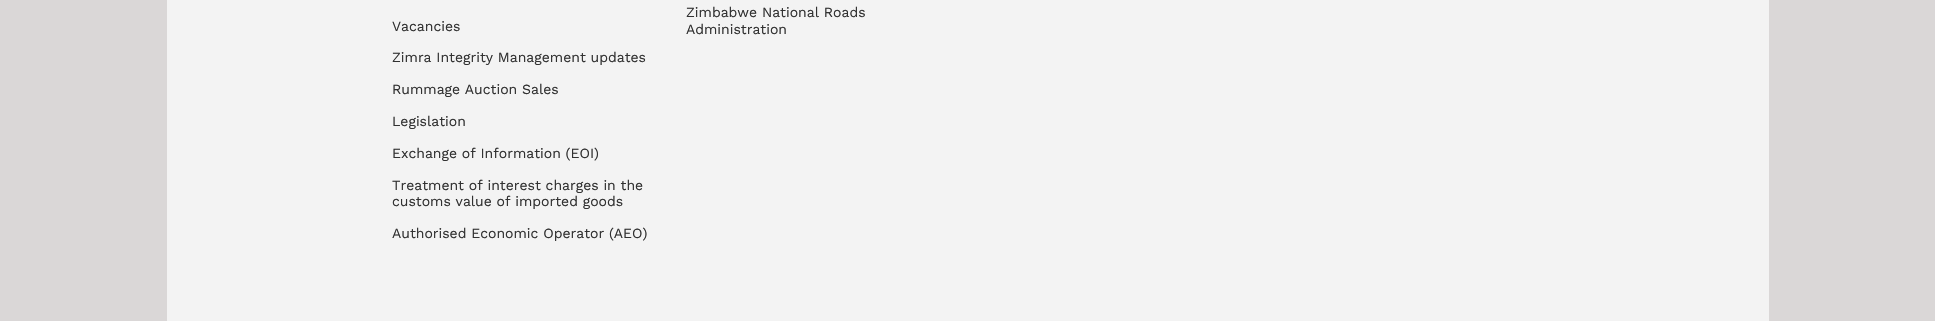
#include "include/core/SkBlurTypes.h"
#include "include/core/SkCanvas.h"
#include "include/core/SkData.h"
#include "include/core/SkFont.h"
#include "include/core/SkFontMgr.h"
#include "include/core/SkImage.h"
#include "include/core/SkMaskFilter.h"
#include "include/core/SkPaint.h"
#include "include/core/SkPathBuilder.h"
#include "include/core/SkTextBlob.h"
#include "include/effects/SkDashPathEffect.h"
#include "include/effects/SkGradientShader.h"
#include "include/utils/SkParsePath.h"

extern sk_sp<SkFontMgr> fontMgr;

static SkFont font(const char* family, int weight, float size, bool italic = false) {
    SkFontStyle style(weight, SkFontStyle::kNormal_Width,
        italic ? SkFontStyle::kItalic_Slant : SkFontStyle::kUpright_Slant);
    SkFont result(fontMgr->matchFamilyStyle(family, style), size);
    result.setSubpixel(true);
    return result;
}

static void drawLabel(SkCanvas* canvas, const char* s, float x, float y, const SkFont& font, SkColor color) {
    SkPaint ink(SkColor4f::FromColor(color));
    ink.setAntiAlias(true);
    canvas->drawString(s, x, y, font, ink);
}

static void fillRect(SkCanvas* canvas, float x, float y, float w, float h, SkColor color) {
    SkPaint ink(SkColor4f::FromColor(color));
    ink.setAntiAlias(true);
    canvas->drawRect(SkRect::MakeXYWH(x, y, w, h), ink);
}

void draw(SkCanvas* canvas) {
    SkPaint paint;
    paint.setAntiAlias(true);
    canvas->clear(0xFFDAD7D7);
    fillRect(canvas, 167, 0, 1, 321, 0xFFF3F3F3);
    fillRect(canvas, 168, 0, 1601, 321, 0xFFF3F3F3);
    SkFont font1 = font("Work Sans", 400, 14);
    drawLabel(canvas, "Vacancies", 392, 31, font1, 0xFF313131);
    drawLabel(canvas, "Zimra Integrity Management updates", 392, 62, font1, 0xFF313131);
    drawLabel(canvas, "Rummage Auction Sales", 392, 94, font1, 0xFF313131);
    drawLabel(canvas, "Legislation", 392, 126, font1, 0xFF313131);
    drawLabel(canvas, "Exchange of Information (EOI)", 392, 158, font1, 0xFF313131);
    drawLabel(canvas, "Treatment of interest charges in the", 392, 190, font1, 0xFF313131);
    drawLabel(canvas, "customs value of imported goods", 392, 206, font1, 0xFF313131);
    drawLabel(canvas, "Authorised Economic Operator (AEO)", 392, 238, font1, 0xFF313131);
    drawLabel(canvas, "Zimbabwe National Roads", 686, 17, font1, 0xFF313131);
    drawLabel(canvas, "Administration", 686, 34, font1, 0xFF313131);
}
